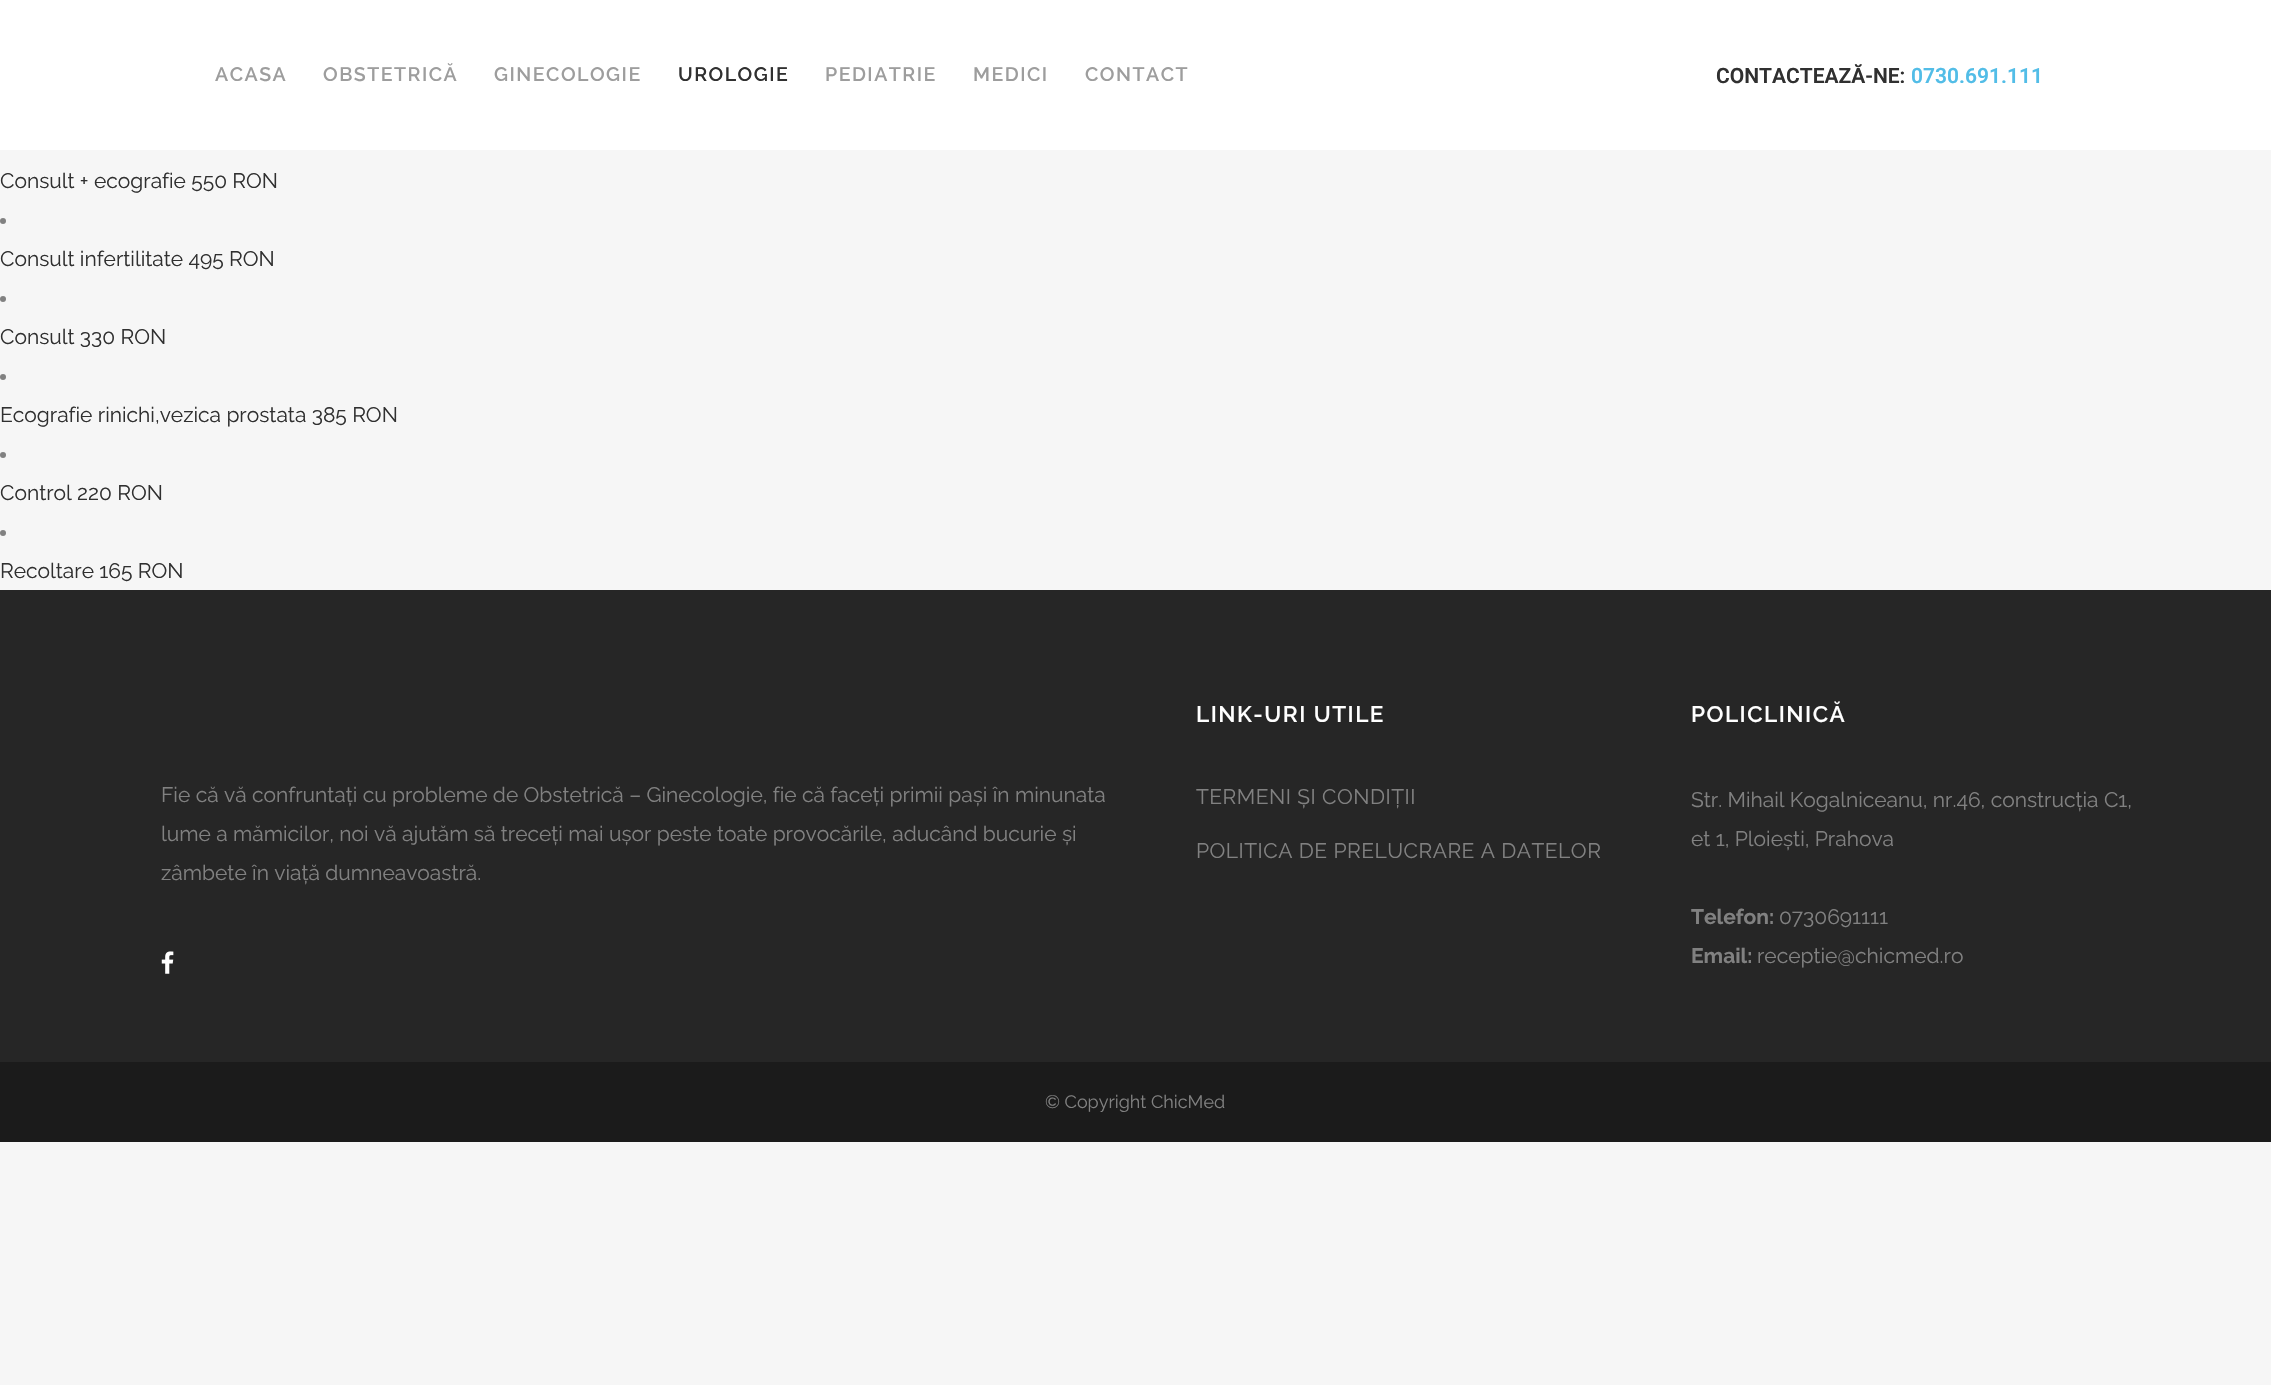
#include "include/core/SkBlurTypes.h"
#include "include/core/SkCanvas.h"
#include "include/core/SkData.h"
#include "include/core/SkFont.h"
#include "include/core/SkFontMgr.h"
#include "include/core/SkImage.h"
#include "include/core/SkMaskFilter.h"
#include "include/core/SkPaint.h"
#include "include/core/SkPathBuilder.h"
#include "include/core/SkTextBlob.h"
#include "include/effects/SkDashPathEffect.h"
#include "include/effects/SkGradientShader.h"
#include "include/utils/SkParsePath.h"

extern sk_sp<SkFontMgr> fontMgr;

static SkFont font(const char* family, int weight, float size, bool italic = false) {
    SkFontStyle style(weight, SkFontStyle::kNormal_Width,
        italic ? SkFontStyle::kItalic_Slant : SkFontStyle::kUpright_Slant);
    SkFont result(fontMgr->matchFamilyStyle(family, style), size);
    result.setSubpixel(true);
    return result;
}

static void drawLabel(SkCanvas* canvas, const char* s, float x, float y, const SkFont& font, SkColor color) {
    SkPaint ink(SkColor4f::FromColor(color));
    ink.setAntiAlias(true);
    canvas->drawString(s, x, y, font, ink);
}

static void drawTracked(SkCanvas* canvas, const char* s, float x, float y, const SkFont& font, const SkPaint& ink, float letter, float word) {
    std::vector<SkGlyphID> glyphs(font.countText(s, strlen(s), SkTextEncoding::kUTF8));
    std::vector<float> xs(glyphs.size());
    font.textToGlyphs(s, strlen(s), SkTextEncoding::kUTF8, glyphs);
    font.getXPos(glyphs, xs, x);
    float extra = 0;
    for (size_t i = 0; i < glyphs.size(); i++) {
        xs[i] += extra;
        extra += letter + word * (glyphs[i] == font.unicharToGlyph(' '));
    }
    canvas->drawTextBlob(SkTextBlob::MakeFromPosHGlyphs(glyphs, xs, y, font), 0, 0, ink);
}

static void fillRect(SkCanvas* canvas, float x, float y, float w, float h, SkColor color) {
    SkPaint ink(SkColor4f::FromColor(color));
    ink.setAntiAlias(true);
    canvas->drawRect(SkRect::MakeXYWH(x, y, w, h), ink);
}

static void drawPhoto(SkCanvas* canvas, const char* path, float x, float y, float w, float h) {
    auto image = SkImages::DeferredFromEncodedData(SkData::MakeFromFileName(path));
    canvas->drawImageRect(image, SkRect::MakeXYWH(x, y, w, h), SkSamplingOptions());
}

void draw(SkCanvas* canvas) {
    SkPaint paint;
    paint.setAntiAlias(true);
    canvas->clear(0xFFF6F6F6);
    fillRect(canvas, 0, 0, 2271, 150, 0xFFFFFFFF);
    SkFont font1 = font("Raleway", 600, 19.5f);
    paint.setColor(0xFF9D9D9D);
    drawTracked(canvas, "ACASA", 215, 81, font1, paint, 1.5f, 0);
    drawTracked(canvas, "OBSTETRICĂ", 323, 81, font1, paint, 1.5f, 0);
    drawTracked(canvas, "GINECOLOGIE", 494, 81, font1, paint, 1.5f, 0);
    paint.setColor(0xFF303030);
    drawTracked(canvas, "UROLOGIE", 678, 81, font1, paint, 1.5f, 0);
    paint.setColor(0xFF9D9D9D);
    drawTracked(canvas, "PEDIATRIE", 825, 81, font1, paint, 1.5f, 0);
    drawTracked(canvas, "MEDICI", 973, 81, font1, paint, 1.5f, 0);
    drawTracked(canvas, "CONTACT", 1085, 81, font1, paint, 1.5f, 0);
    SkFont font2 = font("Roboto", 600, 21);
    drawLabel(canvas, "CONTACTEAZĂ-NE:", 1716, 83, font2, 0xFF303030);
    drawLabel(canvas, "0730.691.111", 1911, 83, font2, 0xFF52BDE7);
    SkFont font3 = font("Raleway", 400, 21);
    drawLabel(canvas, "Consult + ecografie 550 RON", 0, 188, font3, 0xFF303030);
    paint.setColor(0xFF818181);
    canvas->drawCircle(3, 221, 3, paint);
    drawLabel(canvas, "Consult infertilitate 495 RON", 0, 266, font3, 0xFF303030);
    canvas->drawCircle(3, 299, 3, paint);
    drawLabel(canvas, "Consult 330 RON", 0, 344, font3, 0xFF303030);
    canvas->drawCircle(3, 377, 3, paint);
    drawLabel(canvas, "Ecografie rinichi,vezica prostata 385 RON", 0, 422, font3, 0xFF303030);
    canvas->drawCircle(3, 455, 3, paint);
    drawLabel(canvas, "Control 220 RON", 0, 500, font3, 0xFF303030);
    canvas->drawCircle(3, 533, 3, paint);
    drawLabel(canvas, "Recoltare 165 RON", 0, 578, font3, 0xFF303030);
    fillRect(canvas, 0, 590, 2271, 472, 0xFF262626);
    drawLabel(canvas, "Fie că vă confruntați cu probleme de Obstetrică – Ginecologie, fie că faceți primii pași în minunata", 161, 802, font3, 0xFF818181);
    drawLabel(canvas, "lume a mămicilor, noi vă ajutăm să treceți mai ușor peste toate provocările, aducând bucurie și", 161, 841, font3, 0xFF818181);
    drawLabel(canvas, "zâmbete în viață dumneavoastră.", 161, 880, font3, 0xFF818181);
    drawPhoto(canvas, "assets/img1.png", 161, 951, 13, 23);
    SkFont font4 = font("Raleway", 600, 22.5f);
    paint.setColor(0xFFFFFFFF);
    drawTracked(canvas, "LINK-URI UTILE", 1196, 722, font4, paint, 1.5f, 0);
    paint.setColor(0xFF818181);
    drawTracked(canvas, "TERMENI ȘI CONDIȚII", 1196, 804, font3, paint, 0.5f, 0);
    drawTracked(canvas, "POLITICA DE PRELUCRARE A DATELOR", 1196, 858, font3, paint, 0.5f, 0);
    paint.setColor(0xFFFFFFFF);
    drawTracked(canvas, "POLICLINICĂ", 1691, 722, font4, paint, 1.5f, 0);
    drawLabel(canvas, "Str. Mihail Kogalniceanu, nr.46, construcția C1,", 1691, 807, font3, 0xFF818181);
    drawLabel(canvas, "et 1, Ploiești, Prahova", 1691, 846, font3, 0xFF818181);
    SkFont font5 = font("Raleway", 700, 21);
    drawLabel(canvas, "Telefon:", 1691, 924, font5, 0xFF818181);
    drawLabel(canvas, "0730691111", 1779, 924, font3, 0xFF818181);
    drawLabel(canvas, "Email:", 1691, 963, font5, 0xFF818181);
    drawLabel(canvas, "receptie@chicmed.ro", 1757, 963, font3, 0xFF818181);
    fillRect(canvas, 0, 1062, 2271, 80, 0xFF1B1B1B);
    SkFont font6 = font("Raleway", 400, 18);
    drawLabel(canvas, "© Copyright ChicMed", 1045, 1108, font6, 0xFF818181);
}
